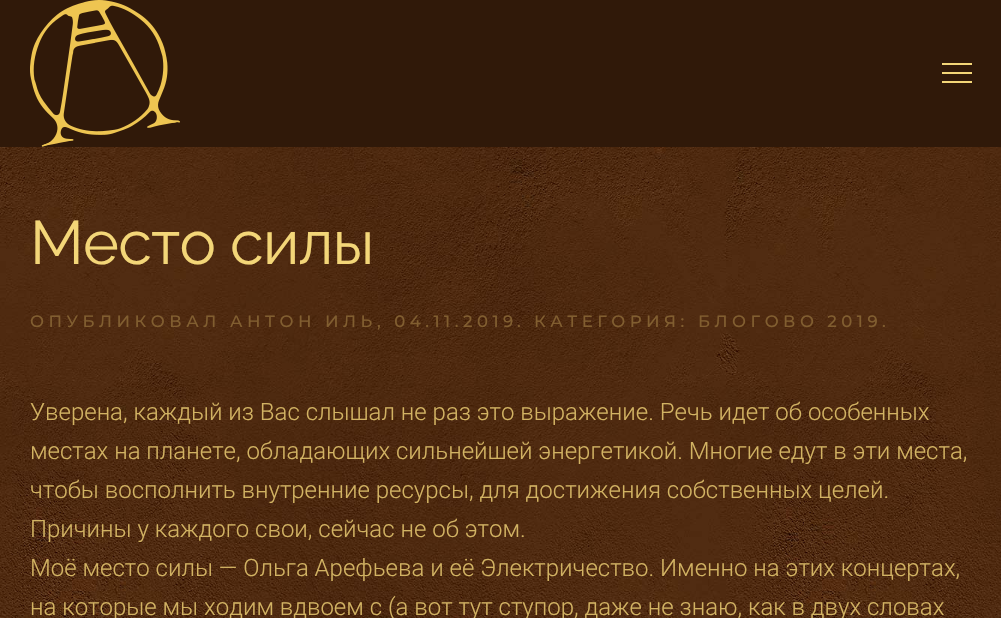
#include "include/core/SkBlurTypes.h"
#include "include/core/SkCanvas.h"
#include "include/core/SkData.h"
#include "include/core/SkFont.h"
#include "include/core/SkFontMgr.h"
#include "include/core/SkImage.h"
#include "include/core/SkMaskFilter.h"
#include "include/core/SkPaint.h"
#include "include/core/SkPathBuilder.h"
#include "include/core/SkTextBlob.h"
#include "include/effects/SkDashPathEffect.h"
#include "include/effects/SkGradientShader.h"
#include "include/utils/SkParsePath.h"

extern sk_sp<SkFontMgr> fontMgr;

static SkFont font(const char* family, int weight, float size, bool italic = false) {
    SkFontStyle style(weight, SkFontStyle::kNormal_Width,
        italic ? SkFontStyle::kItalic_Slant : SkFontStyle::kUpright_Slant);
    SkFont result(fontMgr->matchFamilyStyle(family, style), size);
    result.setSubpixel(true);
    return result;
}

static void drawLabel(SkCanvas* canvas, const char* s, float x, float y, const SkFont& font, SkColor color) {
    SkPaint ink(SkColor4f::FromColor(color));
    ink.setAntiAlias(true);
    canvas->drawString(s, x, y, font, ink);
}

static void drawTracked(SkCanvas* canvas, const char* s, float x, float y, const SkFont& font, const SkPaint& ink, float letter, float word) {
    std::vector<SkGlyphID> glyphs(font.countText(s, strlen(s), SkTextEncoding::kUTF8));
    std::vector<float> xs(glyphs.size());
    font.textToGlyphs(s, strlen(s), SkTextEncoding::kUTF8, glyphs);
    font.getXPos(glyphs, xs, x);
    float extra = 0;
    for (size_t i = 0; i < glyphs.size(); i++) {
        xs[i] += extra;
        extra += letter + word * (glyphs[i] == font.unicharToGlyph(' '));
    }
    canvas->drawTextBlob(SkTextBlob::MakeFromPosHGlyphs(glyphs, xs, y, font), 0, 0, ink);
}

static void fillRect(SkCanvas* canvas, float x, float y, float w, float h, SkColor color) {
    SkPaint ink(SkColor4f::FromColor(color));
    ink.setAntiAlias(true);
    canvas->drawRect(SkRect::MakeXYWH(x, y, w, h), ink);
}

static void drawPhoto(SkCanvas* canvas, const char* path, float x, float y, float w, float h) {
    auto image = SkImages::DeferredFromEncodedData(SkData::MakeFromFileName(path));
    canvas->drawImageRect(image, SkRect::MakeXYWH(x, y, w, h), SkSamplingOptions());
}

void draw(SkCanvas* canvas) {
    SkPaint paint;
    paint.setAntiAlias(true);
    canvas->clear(0xFF301909);
    drawPhoto(canvas, "assets/img1.png", 30, 0, 150, 147);
    fillRect(canvas, 942, 63, 30, 2, 0xFFF3D678);
    fillRect(canvas, 942, 72, 30, 2, 0xFFF3D678);
    fillRect(canvas, 942, 81, 30, 2, 0xFFF3D678);
    drawPhoto(canvas, "assets/img2.png", 0, 147, 1001, 471);
    SkFont font1 = font("Raleway", 400, 61.25f);
    paint.setColor(0xFFF3D678);
    drawTracked(canvas, "Место силы", 30, 264, font1, paint, -0.75f, 0);
    SkFont font2 = font("Montserrat", 500, 16.5f);
    paint.setColor(0xFF815E30);
    drawTracked(canvas, "ОПУБЛИКОВАЛ", 30, 327, font2, paint, 4.5f, 0);
    drawTracked(canvas, "АНТОН ИЛЬ", 230, 327, font2, paint, 4.5f, 0);
    drawTracked(canvas, ", 04.11.2019", 377, 327, font2, paint, 4.5f, 0);
    drawTracked(canvas, ".", 517, 327, font2, paint, 4.5f, 0);
    drawTracked(canvas, "КАТЕГОРИЯ:", 534, 327, font2, paint, 4.5f, 0);
    drawTracked(canvas, "БЛОГОВО 2019", 698, 327, font2, paint, 4.5f, 0);
    drawTracked(canvas, ".", 882, 327, font2, paint, 4.5f, 0);
    SkFont font3 = font("Roboto", 300, 24);
    drawLabel(canvas, "Уверена, каждый из Вас слышал не раз это выражение. Речь идет об особенных", 30, 420, font3, 0xFFD2B363);
    drawLabel(canvas, "местах на планете, обладающих сильнейшей энергетикой. Многие едут в эти места,", 30, 459, font3, 0xFFD2B363);
    drawLabel(canvas, "чтобы восполнить внутренние ресурсы, для достижения собственных целей.", 30, 498, font3, 0xFFD2B363);
    drawLabel(canvas, "Причины у каждого свои, сейчас не об этом.", 30, 537, font3, 0xFFD2B363);
    drawLabel(canvas, "Моё место силы — Ольга Арефьева и её Электричество. Именно на этих концертах,", 30, 576, font3, 0xFFD2B363);
    drawLabel(canvas, "на которые мы ходим вдвоем с (а вот тут ступор, даже не знаю, как в двух словах", 30, 615, font3, 0xFFD2B363);
}
